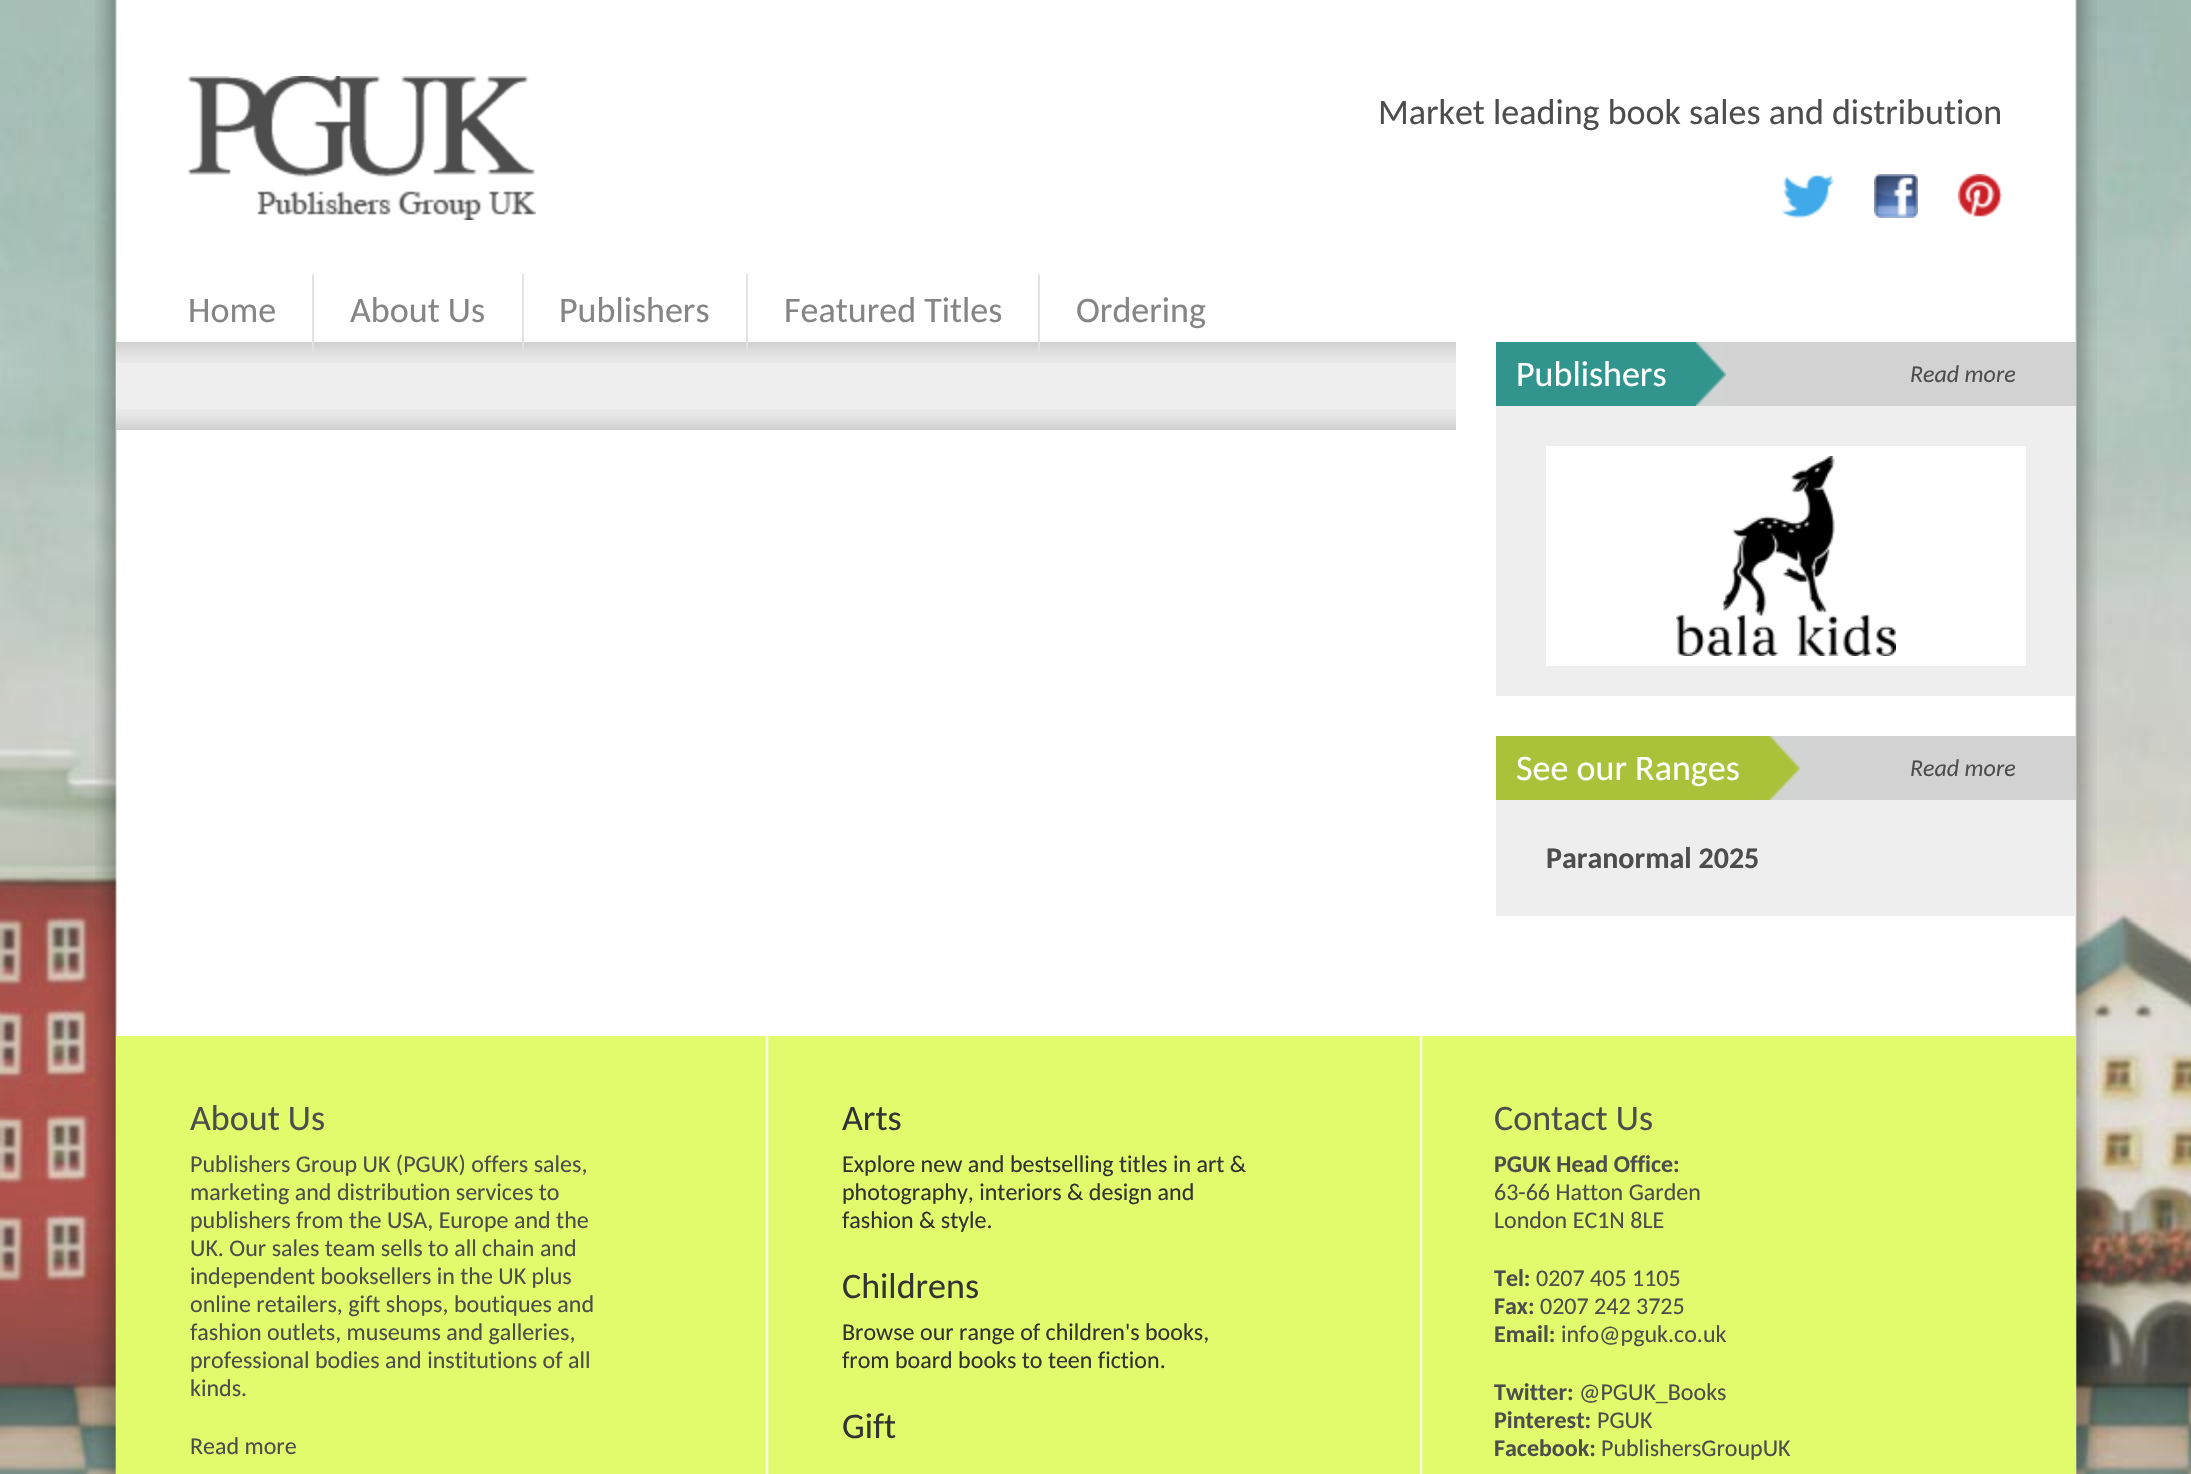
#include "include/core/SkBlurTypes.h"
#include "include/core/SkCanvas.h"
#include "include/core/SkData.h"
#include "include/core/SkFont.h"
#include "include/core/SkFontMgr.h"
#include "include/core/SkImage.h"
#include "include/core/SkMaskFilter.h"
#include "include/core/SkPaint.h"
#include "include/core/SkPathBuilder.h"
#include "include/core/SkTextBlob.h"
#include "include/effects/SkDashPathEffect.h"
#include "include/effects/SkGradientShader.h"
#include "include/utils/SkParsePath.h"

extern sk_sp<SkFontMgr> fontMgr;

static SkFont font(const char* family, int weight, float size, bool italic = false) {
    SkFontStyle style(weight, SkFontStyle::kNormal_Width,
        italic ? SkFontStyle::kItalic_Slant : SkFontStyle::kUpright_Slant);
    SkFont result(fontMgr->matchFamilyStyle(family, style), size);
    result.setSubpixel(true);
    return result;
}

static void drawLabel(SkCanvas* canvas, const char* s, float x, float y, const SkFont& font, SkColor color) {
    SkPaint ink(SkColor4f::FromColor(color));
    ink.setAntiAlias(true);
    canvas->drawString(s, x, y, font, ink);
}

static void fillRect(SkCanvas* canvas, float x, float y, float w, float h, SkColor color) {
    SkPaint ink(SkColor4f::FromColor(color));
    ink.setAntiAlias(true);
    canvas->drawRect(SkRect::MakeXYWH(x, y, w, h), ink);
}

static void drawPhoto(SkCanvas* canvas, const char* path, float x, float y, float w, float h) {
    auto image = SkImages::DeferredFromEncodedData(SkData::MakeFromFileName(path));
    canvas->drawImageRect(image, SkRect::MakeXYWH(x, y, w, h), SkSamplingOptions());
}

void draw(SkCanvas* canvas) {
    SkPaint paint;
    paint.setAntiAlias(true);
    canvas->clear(0xFFFFFFFF);
    drawPhoto(canvas, "assets/img1.png", 0, 0, 2191, 1474);
    drawPhoto(canvas, "assets/img2.png", 95, 0, 2002, 1474);
    drawPhoto(canvas, "assets/img3.png", 188, 76, 348, 144);
    SkFont font1 = font("Carlito", 400, 36);
    drawLabel(canvas, "Market leading book sales and distribution", 1378, 124, font1, 0xFF4D4D4D);
    drawPhoto(canvas, "assets/img4.png", 1782, 175, 52, 43);
    drawPhoto(canvas, "assets/img5.png", 1874, 174, 44, 44);
    drawPhoto(canvas, "assets/img6.png", 1958, 174, 44, 43);
    drawPhoto(canvas, "assets/img7.png", 116, 342, 1340, 21);
    fillRect(canvas, 312, 274, 2, 78, 0xFFE2E2E2);
    drawLabel(canvas, "Home", 188, 322, font1, 0xFF858585);
    fillRect(canvas, 522, 274, 2, 78, 0xFFE2E2E2);
    drawLabel(canvas, "About Us", 350, 322, font1, 0xFF858585);
    fillRect(canvas, 746, 274, 2, 78, 0xFFE2E2E2);
    drawLabel(canvas, "Publishers", 559, 322, font1, 0xFF858585);
    fillRect(canvas, 1038, 274, 2, 78, 0xFFE2E2E2);
    drawLabel(canvas, "Featured Titles", 784, 322, font1, 0xFF858585);
    drawLabel(canvas, "Ordering", 1076, 322, font1, 0xFF858585);
    fillRect(canvas, 116, 363, 1340, 46, 0xFFEEEEEE);
    drawPhoto(canvas, "assets/img8.png", 116, 409, 1340, 21);
    fillRect(canvas, 1496, 406, 580, 290, 0xFFEEEEEE);
    fillRect(canvas, 1726, 342, 350, 64, 0xFFD2D2D2);
    fillRect(canvas, 1496, 342, 230, 64, 0xFF32958D);
    drawPhoto(canvas, "assets/img9.png", 1696, 342, 30, 64);
    drawLabel(canvas, "Publishers", 1516, 386, font1, 0xFFFFFFFF);
    SkFont font2 = font("Carlito", 400, 24, true);
    drawLabel(canvas, "Read more", 1910, 382, font2, 0xFF4D4D4D);
    fillRect(canvas, 1546, 446, 480, 220, 0xFFFFFFFF);
    drawPhoto(canvas, "assets/img10.png", 1676, 456, 220, 200);
    fillRect(canvas, 1496, 800, 580, 116, 0xFFEEEEEE);
    fillRect(canvas, 1800, 736, 276, 64, 0xFFD2D2D2);
    fillRect(canvas, 1496, 736, 304, 64, 0xFFA9C23A);
    drawPhoto(canvas, "assets/img11.png", 1770, 736, 30, 64);
    drawLabel(canvas, "See our Ranges", 1516, 780, font1, 0xFFFFFFFF);
    drawLabel(canvas, "Read more", 1910, 776, font2, 0xFF4D4D4D);
    SkFont font3 = font("Carlito", 700, 30);
    drawLabel(canvas, "Paranormal 2025", 1546, 868, font3, 0xFF4D4D4D);
    drawPhoto(canvas, "assets/img12.png", 116, 1036, 1960, 438);
    drawLabel(canvas, "About Us", 190, 1130, font1, 0xFF4D4D4D);
    SkFont font4 = font("Carlito", 400, 24);
    drawLabel(canvas, "Publishers Group UK (PGUK) offers sales,", 190, 1172, font4, 0xFF4D4D4D);
    drawLabel(canvas, "marketing and distribution services to", 190, 1200, font4, 0xFF4D4D4D);
    drawLabel(canvas, "publishers from the USA, Europe and the", 190, 1228, font4, 0xFF4D4D4D);
    drawLabel(canvas, "UK. Our sales team sells to all chain and", 190, 1256, font4, 0xFF4D4D4D);
    drawLabel(canvas, "independent booksellers in the UK plus", 190, 1284, font4, 0xFF4D4D4D);
    drawLabel(canvas, "online retailers, gift shops, boutiques and", 190, 1312, font4, 0xFF4D4D4D);
    drawLabel(canvas, "fashion outlets, museums and galleries,", 190, 1340, font4, 0xFF4D4D4D);
    drawLabel(canvas, "professional bodies and institutions of all", 190, 1368, font4, 0xFF4D4D4D);
    drawLabel(canvas, "kinds.", 190, 1396, font4, 0xFF4D4D4D);
    drawLabel(canvas, "Read more", 190, 1454, font4, 0xFF4D4D4D);
    drawLabel(canvas, "Arts", 842, 1130, font1, 0xFF333333);
    drawLabel(canvas, "Explore new and bestselling titles in art &", 842, 1172, font4, 0xFF333333);
    drawLabel(canvas, "photography, interiors & design and", 842, 1200, font4, 0xFF333333);
    drawLabel(canvas, "fashion & style.", 842, 1228, font4, 0xFF333333);
    drawLabel(canvas, "Childrens", 842, 1298, font1, 0xFF333333);
    drawLabel(canvas, "Browse our range of children's books,", 842, 1340, font4, 0xFF333333);
    drawLabel(canvas, "from board books to teen fiction.", 842, 1368, font4, 0xFF333333);
    drawLabel(canvas, "Gift", 842, 1438, font1, 0xFF333333);
    drawLabel(canvas, "Contact Us", 1494, 1130, font1, 0xFF4D4D4D);
    SkFont font5 = font("Carlito", 700, 24);
    drawLabel(canvas, "PGUK Head Office:", 1494, 1172, font5, 0xFF4D4D4D);
    drawLabel(canvas, "63-66 Hatton Garden", 1494, 1200, font4, 0xFF4D4D4D);
    drawLabel(canvas, "London EC1N 8LE", 1494, 1228, font4, 0xFF4D4D4D);
    drawLabel(canvas, "Tel:", 1494, 1286, font5, 0xFF4D4D4D);
    drawLabel(canvas, "0207 405 1105", 1536, 1286, font4, 0xFF4D4D4D);
    drawLabel(canvas, "Fax:", 1494, 1314, font5, 0xFF4D4D4D);
    drawLabel(canvas, "0207 242 3725", 1540, 1314, font4, 0xFF4D4D4D);
    drawLabel(canvas, "Email:", 1494, 1342, font5, 0xFF4D4D4D);
    drawLabel(canvas, "info@pguk.co.uk", 1561, 1342, font4, 0xFF4D4D4D);
    drawLabel(canvas, "Twitter:", 1494, 1400, font5, 0xFF4D4D4D);
    drawLabel(canvas, "@PGUK_Books", 1579, 1400, font4, 0xFF4D4D4D);
    drawLabel(canvas, "Pinterest:", 1494, 1428, font5, 0xFF4D4D4D);
    drawLabel(canvas, "PGUK", 1597, 1428, font4, 0xFF4D4D4D);
    drawLabel(canvas, "Facebook:", 1494, 1456, font5, 0xFF4D4D4D);
    drawLabel(canvas, "PublishersGroupUK", 1601, 1456, font4, 0xFF4D4D4D);
}
